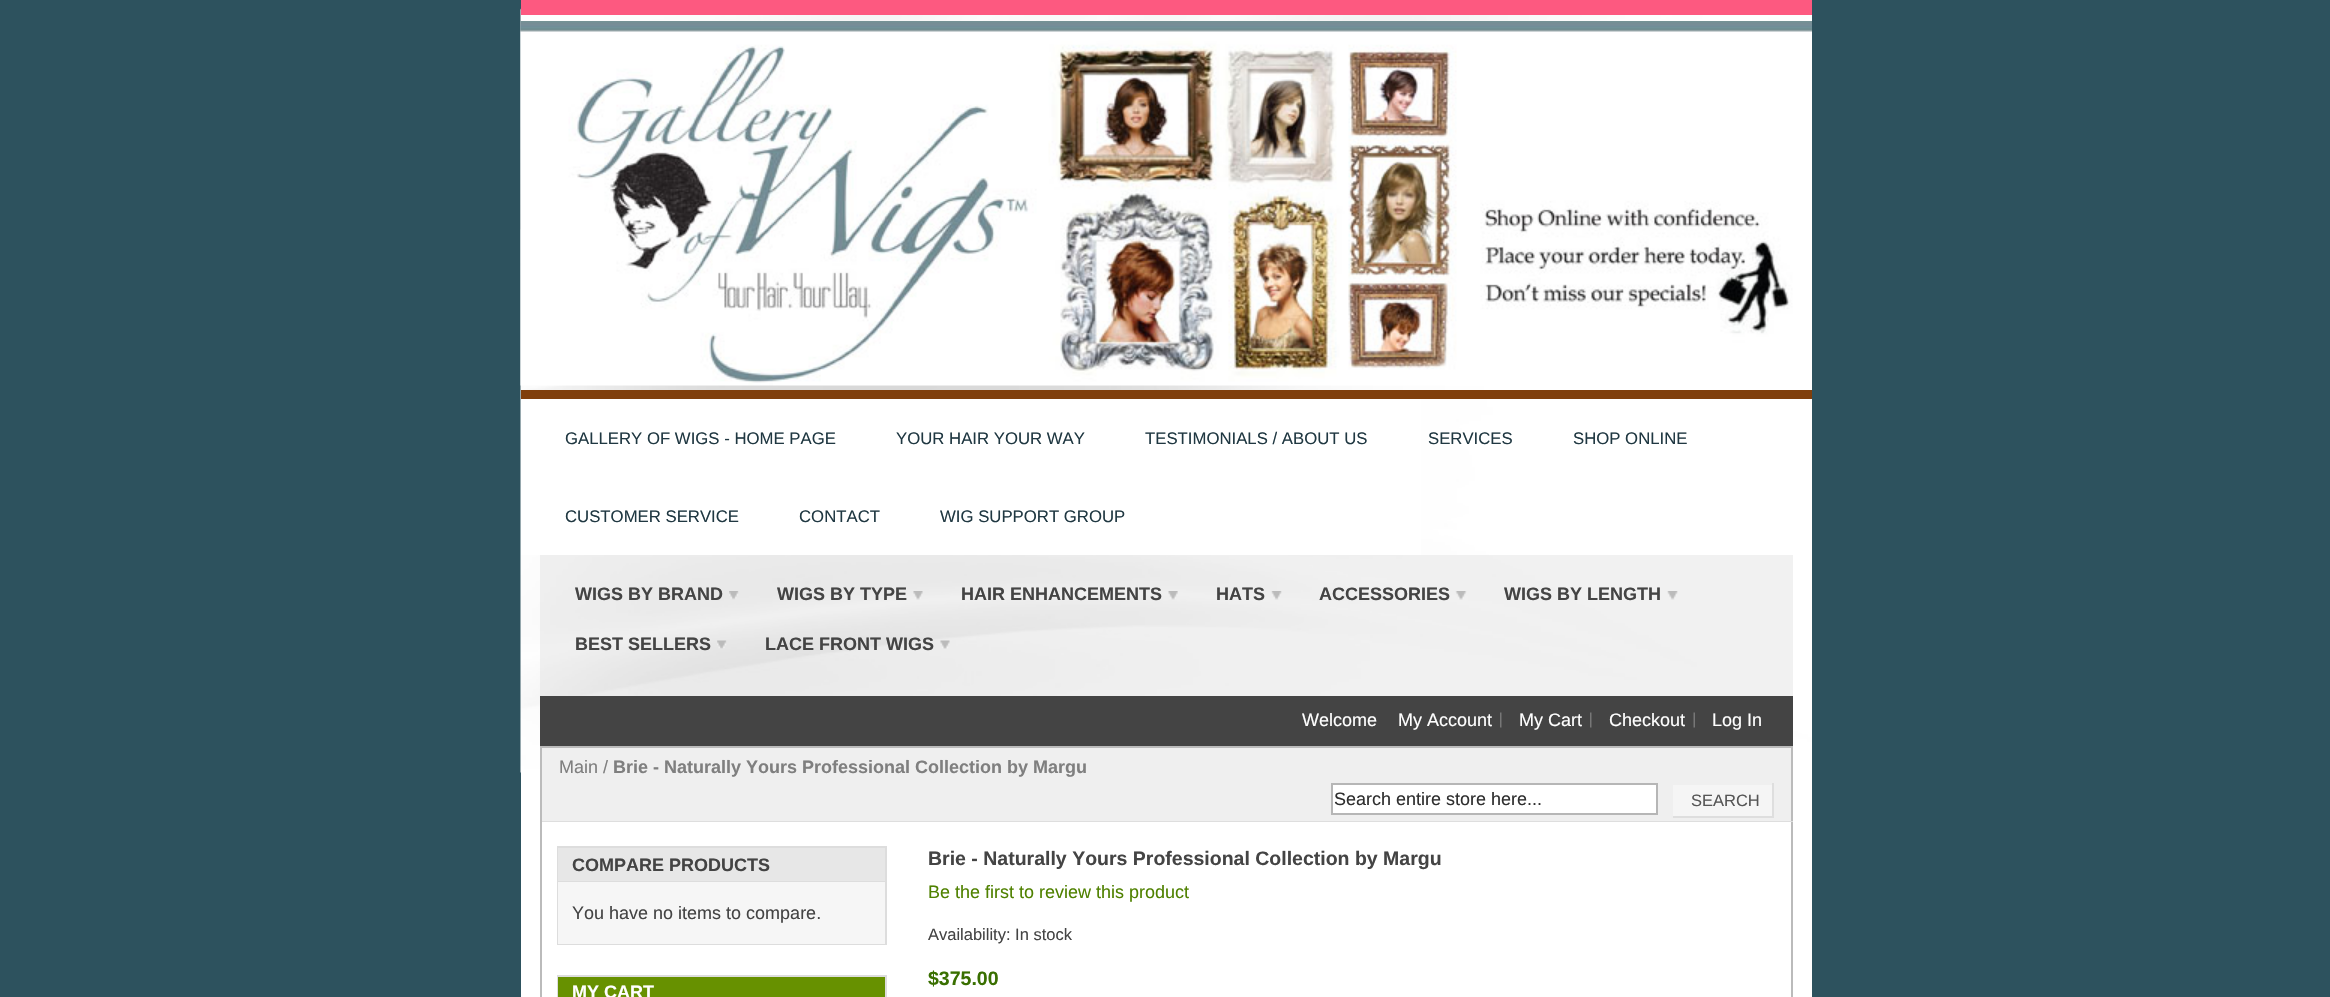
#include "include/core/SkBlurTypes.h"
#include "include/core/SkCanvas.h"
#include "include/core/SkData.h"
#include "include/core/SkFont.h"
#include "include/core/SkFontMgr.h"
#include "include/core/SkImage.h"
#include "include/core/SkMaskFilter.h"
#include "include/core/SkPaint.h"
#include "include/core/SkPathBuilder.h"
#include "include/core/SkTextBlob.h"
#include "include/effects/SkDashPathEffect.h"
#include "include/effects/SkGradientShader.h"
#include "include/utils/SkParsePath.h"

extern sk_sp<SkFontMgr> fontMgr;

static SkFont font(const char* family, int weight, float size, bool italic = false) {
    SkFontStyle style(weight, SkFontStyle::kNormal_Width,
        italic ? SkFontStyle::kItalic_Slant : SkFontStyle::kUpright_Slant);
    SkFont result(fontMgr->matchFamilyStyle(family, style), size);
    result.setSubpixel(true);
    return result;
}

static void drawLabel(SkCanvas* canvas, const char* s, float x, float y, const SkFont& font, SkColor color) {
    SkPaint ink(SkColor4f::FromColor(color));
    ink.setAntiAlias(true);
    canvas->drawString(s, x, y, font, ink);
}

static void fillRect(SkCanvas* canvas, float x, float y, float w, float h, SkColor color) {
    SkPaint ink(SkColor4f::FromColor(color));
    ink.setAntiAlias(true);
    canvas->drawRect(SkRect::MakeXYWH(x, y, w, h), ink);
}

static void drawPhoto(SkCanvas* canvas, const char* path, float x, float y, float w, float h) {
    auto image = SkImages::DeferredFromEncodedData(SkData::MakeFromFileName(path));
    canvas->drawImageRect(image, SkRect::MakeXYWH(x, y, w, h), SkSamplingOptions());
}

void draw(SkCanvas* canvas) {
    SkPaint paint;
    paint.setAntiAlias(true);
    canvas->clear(0xFF2D525E);
    fillRect(canvas, 521, 772, 1291, 225, 0xFFFFFFFF);
    drawPhoto(canvas, "assets/img1.png", 520, 0, 1292, 773);
    drawPhoto(canvas, "assets/img2.png", 520, 21, 1292, 365);
    fillRect(canvas, 521, 0, 1291, 15, 0xFFFD5980);
    fillRect(canvas, 521, 399, 900, 156, 0xFFFFFFFF);
    fillRect(canvas, 521, 390, 1291, 9, 0xFF803F0C);
    SkFont font1 = font("Liberation Sans", 400, 16.75f);
    drawLabel(canvas, "GALLERY OF WIGS - HOME PAGE", 565, 444, font1, 0xFF203842);
    drawLabel(canvas, "YOUR HAIR YOUR WAY", 896, 444, font1, 0xFF203842);
    drawLabel(canvas, "TESTIMONIALS / ABOUT US", 1145, 444, font1, 0xFF203842);
    drawLabel(canvas, "SERVICES", 1428, 444, font1, 0xFF203842);
    drawLabel(canvas, "SHOP ONLINE", 1573, 444, font1, 0xFF203842);
    drawLabel(canvas, "CUSTOMER SERVICE", 565, 522, font1, 0xFF203842);
    drawLabel(canvas, "CONTACT", 799, 522, font1, 0xFF203842);
    drawLabel(canvas, "WIG SUPPORT GROUP", 940, 522, font1, 0xFF203842);
    fillRect(canvas, 540, 555, 1253, 141, 0x66DCDCDC);
    drawPhoto(canvas, "assets/img3.png", 729, 591, 10, 9);
    SkFont font2 = font("Liberation Sans", 700, 18);
    drawLabel(canvas, "WIGS BY BRAND", 575, 600, font2, 0xFF444444);
    drawPhoto(canvas, "assets/img4.png", 913, 591, 10, 9);
    drawLabel(canvas, "WIGS BY TYPE", 777, 600, font2, 0xFF444444);
    drawPhoto(canvas, "assets/img5.png", 1168, 591, 10, 9);
    drawLabel(canvas, "HAIR ENHANCEMENTS", 961, 600, font2, 0xFF444444);
    drawPhoto(canvas, "assets/img6.png", 1271, 591, 11, 9);
    drawLabel(canvas, "HATS", 1216, 600, font2, 0xFF444444);
    drawPhoto(canvas, "assets/img7.png", 1455, 591, 12, 9);
    drawLabel(canvas, "ACCESSORIES", 1319, 600, font2, 0xFF444444);
    drawPhoto(canvas, "assets/img8.png", 1667, 591, 11, 9);
    drawLabel(canvas, "WIGS BY LENGTH", 1504, 600, font2, 0xFF444444);
    drawPhoto(canvas, "assets/img9.png", 717, 640, 10, 9);
    drawLabel(canvas, "BEST SELLERS", 575, 650, font2, 0xFF444444);
    drawPhoto(canvas, "assets/img10.png", 940, 640, 10, 9);
    drawLabel(canvas, "LACE FRONT WIGS", 765, 650, font2, 0xFF444444);
    fillRect(canvas, 540, 696, 1253, 50, 0xFF444444);
    SkFont font3 = font("Liberation Sans", 400, 18);
    drawLabel(canvas, "Welcome", 1302, 726, font3, 0xFFFFFFFF);
    drawLabel(canvas, "My Account", 1398, 726, font3, 0xFFFFFFFF);
    drawPhoto(canvas, "assets/img11.png", 1500, 712, 2, 16);
    drawLabel(canvas, "My Cart", 1519, 726, font3, 0xFFFFFFFF);
    drawPhoto(canvas, "assets/img11.png", 1590, 712, 2, 16);
    drawLabel(canvas, "Checkout", 1609, 726, font3, 0xFFFFFFFF);
    drawPhoto(canvas, "assets/img12.png", 1693, 712, 2, 16);
    drawLabel(canvas, "Log In", 1712, 726, font3, 0xFFFFFFFF);
    fillRect(canvas, 542, 748, 1249, 73, 0xFFEFEFEF);
    fillRect(canvas, 540, 746, 1253, 2, 0xFFBBBBBB);
    fillRect(canvas, 1791, 746, 2, 251, 0xFFBBBBBB);
    fillRect(canvas, 540, 821, 1253, 1, 0xFFDEDEDE);
    fillRect(canvas, 540, 746, 2, 251, 0xFFBBBBBB);
    drawLabel(canvas, "Main /", 559, 773, font3, 0xFF7F7F7F);
    drawLabel(canvas, "Brie - Naturally Yours Professional Collection by Margu", 613, 773, font2, 0xFF7F7F7F);
    paint.setColor(0xFFFFFFFF);
    canvas->drawRect(SkRect::MakeXYWH(1332, 784, 325, 30), paint);
    paint.setStroke(true);
    paint.setStrokeWidth(2);
    paint.setColor(0xFFB6B6B6);
    canvas->drawRect(SkRect::MakeXYWH(1332, 784, 325, 30), paint);
    drawLabel(canvas, "Search entire store here...", 1334, 805, font3, 0xFF2F2F2F);
    fillRect(canvas, 1673, 785, 99, 31, 0xFFF5F5F5);
    fillRect(canvas, 1772, 783, 2, 35, 0xFFDEDEDE);
    fillRect(canvas, 1671, 816, 102, 2, 0xFFDEDEDE);
    fillRect(canvas, 1671, 816, 2, 2, 0xFFEEEEEE);
    SkFont font4 = font("Liberation Sans", 400, 16.5f);
    drawLabel(canvas, "SEARCH", 1691, 806, font4, 0xFF565656);
    paint.setColor(0xFFDDDDDD);
    canvas->drawRect(SkRect::MakeXYWH(558, 847, 328, 97), paint);
    fillRect(canvas, 558, 848, 327, 33, 0xFFE7E7E7);
    fillRect(canvas, 558, 881, 327, 1, 0xFFDDDDDD);
    drawLabel(canvas, "COMPARE PRODUCTS", 572, 871, font2, 0xFF444444);
    fillRect(canvas, 558, 882, 327, 62, 0xFFF6F6F6);
    drawLabel(canvas, "You have no items to compare.", 572, 919, font3, 0xFF444444);
    canvas->drawRect(SkRect::MakeXYWH(558, 976, 328, 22), paint);
    fillRect(canvas, 558, 977, 327, 20, 0xFF679100);
    drawLabel(canvas, "MY CART", 572, 998, font2, 0xFFFFFFFF);
    SkFont font5 = font("Liberation Sans", 700, 19.5f);
    drawLabel(canvas, "Brie - Naturally Yours Professional Collection by Margu", 928, 865, font5, 0xFF444444);
    drawLabel(canvas, "Be the first to review this product", 928, 898, font3, 0xFF4F8100);
    drawLabel(canvas, "Availability: In stock", 928, 940, font4, 0xFF444444);
    drawLabel(canvas, "$375.00", 928, 985, font5, 0xFF396F00);
}
